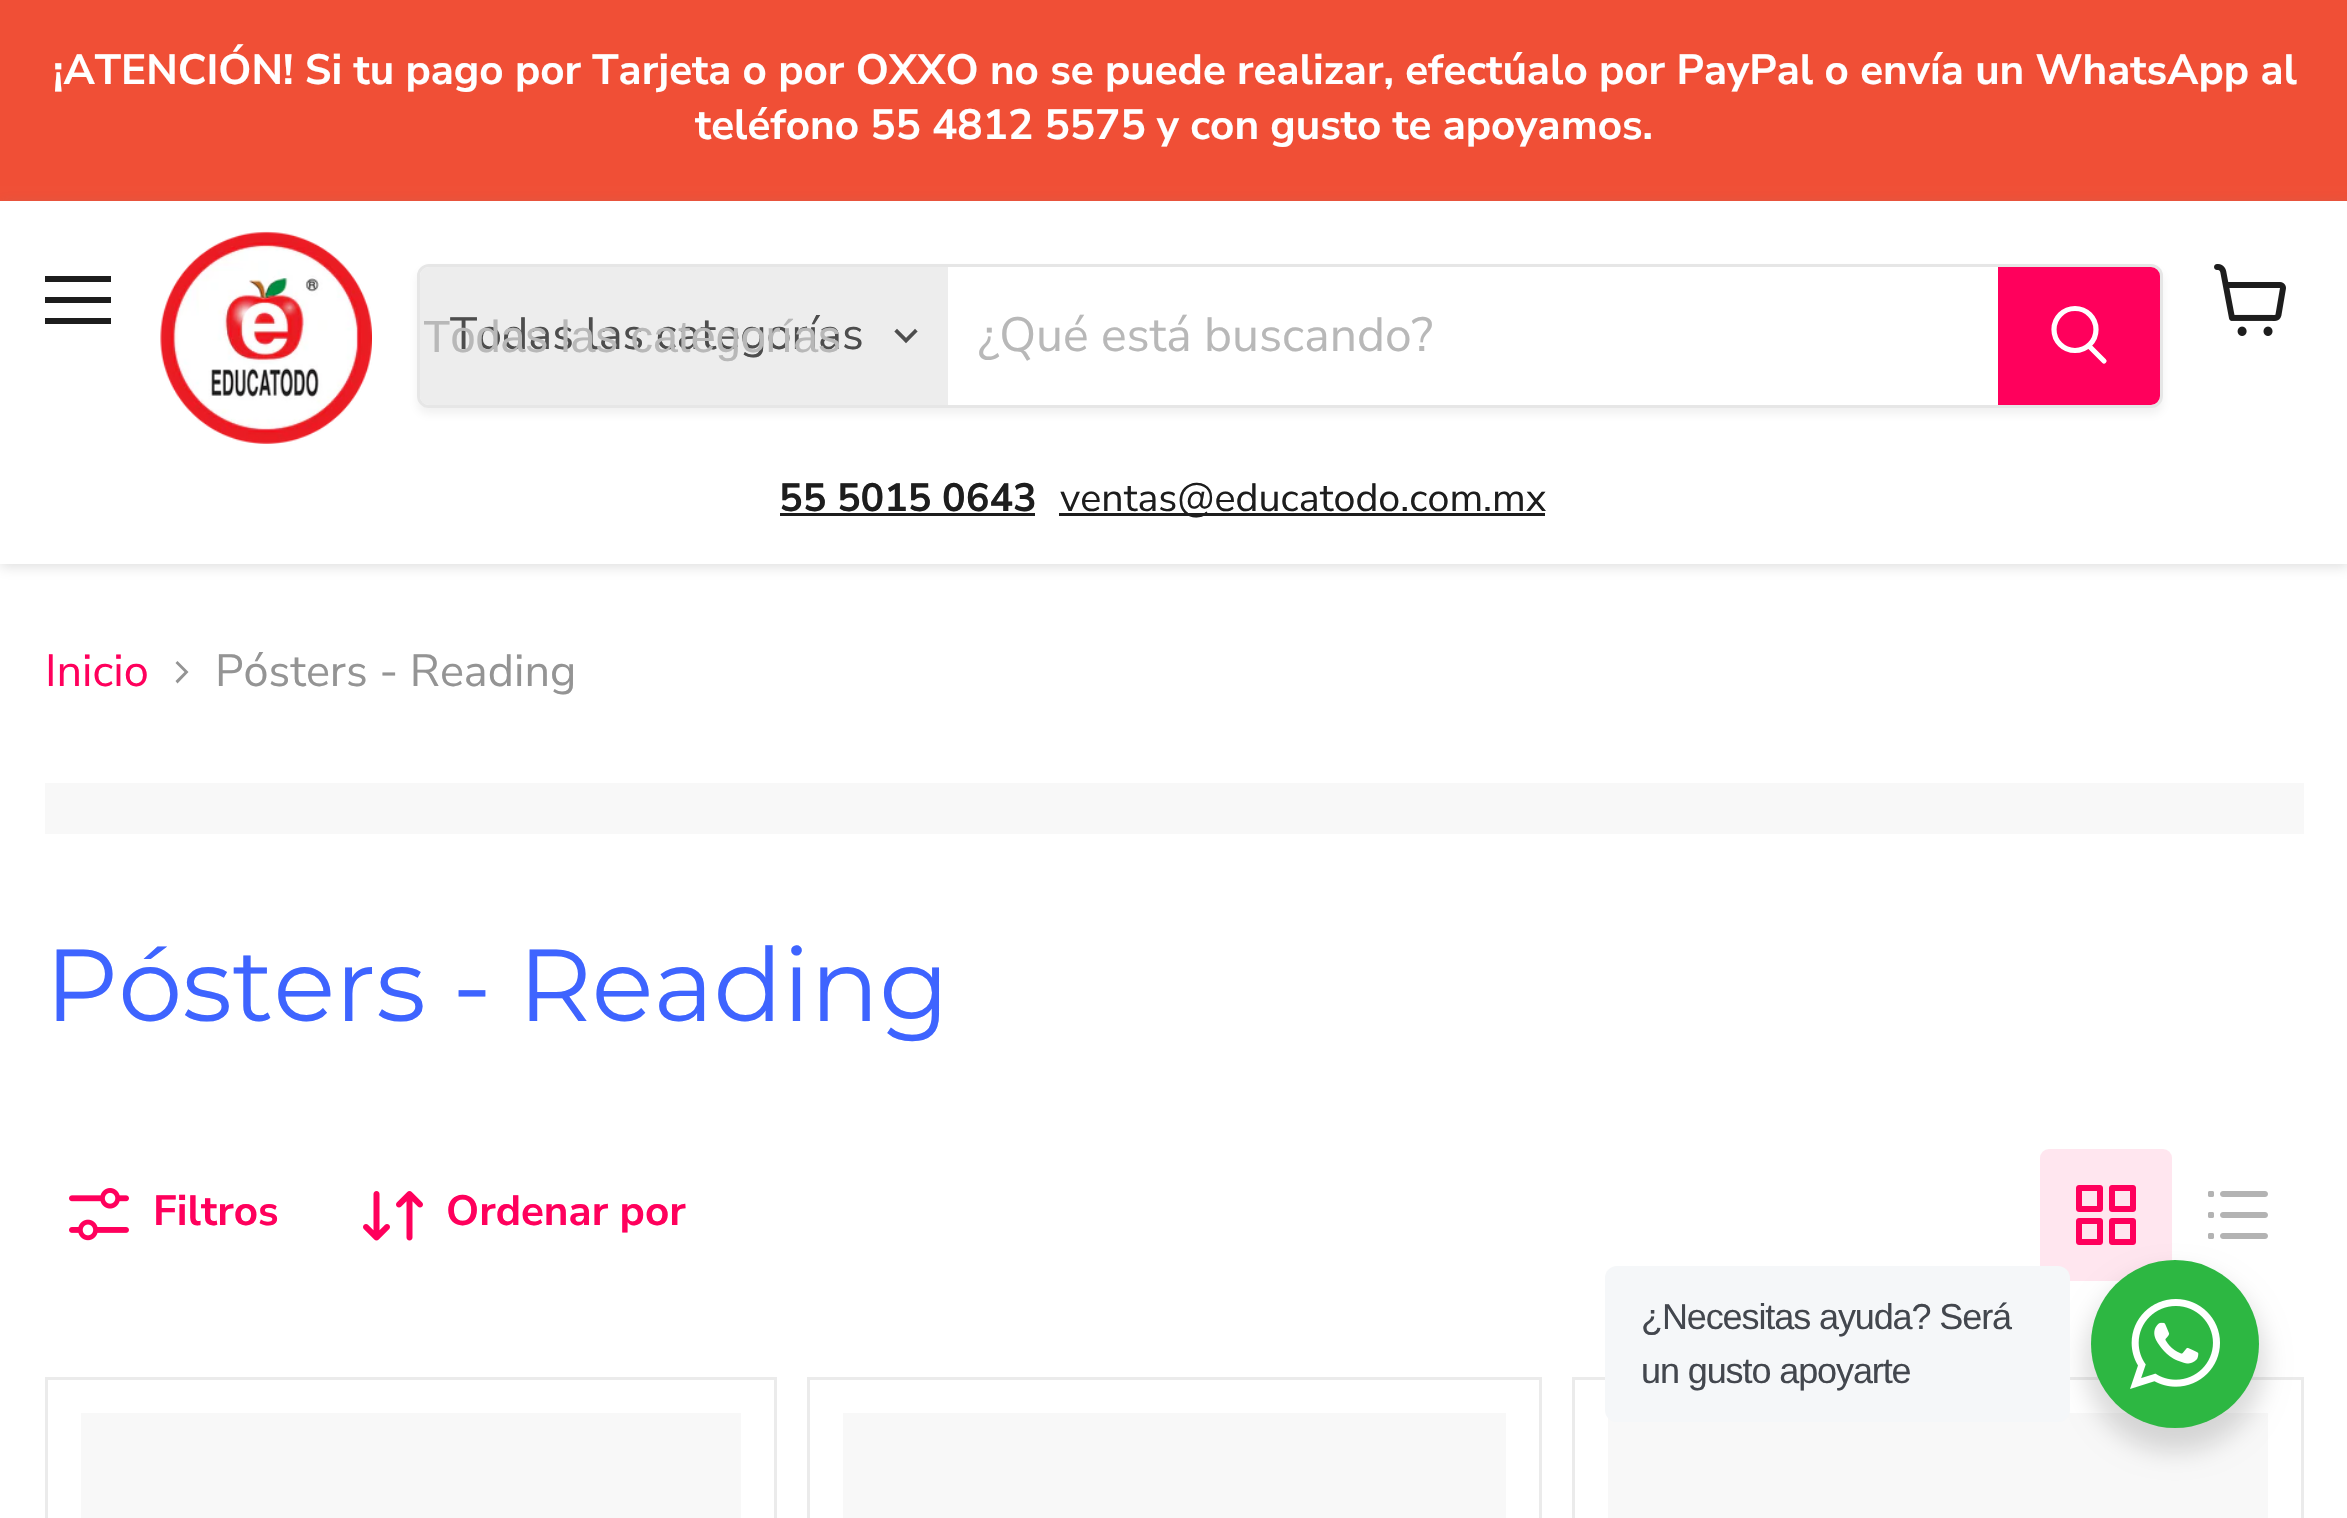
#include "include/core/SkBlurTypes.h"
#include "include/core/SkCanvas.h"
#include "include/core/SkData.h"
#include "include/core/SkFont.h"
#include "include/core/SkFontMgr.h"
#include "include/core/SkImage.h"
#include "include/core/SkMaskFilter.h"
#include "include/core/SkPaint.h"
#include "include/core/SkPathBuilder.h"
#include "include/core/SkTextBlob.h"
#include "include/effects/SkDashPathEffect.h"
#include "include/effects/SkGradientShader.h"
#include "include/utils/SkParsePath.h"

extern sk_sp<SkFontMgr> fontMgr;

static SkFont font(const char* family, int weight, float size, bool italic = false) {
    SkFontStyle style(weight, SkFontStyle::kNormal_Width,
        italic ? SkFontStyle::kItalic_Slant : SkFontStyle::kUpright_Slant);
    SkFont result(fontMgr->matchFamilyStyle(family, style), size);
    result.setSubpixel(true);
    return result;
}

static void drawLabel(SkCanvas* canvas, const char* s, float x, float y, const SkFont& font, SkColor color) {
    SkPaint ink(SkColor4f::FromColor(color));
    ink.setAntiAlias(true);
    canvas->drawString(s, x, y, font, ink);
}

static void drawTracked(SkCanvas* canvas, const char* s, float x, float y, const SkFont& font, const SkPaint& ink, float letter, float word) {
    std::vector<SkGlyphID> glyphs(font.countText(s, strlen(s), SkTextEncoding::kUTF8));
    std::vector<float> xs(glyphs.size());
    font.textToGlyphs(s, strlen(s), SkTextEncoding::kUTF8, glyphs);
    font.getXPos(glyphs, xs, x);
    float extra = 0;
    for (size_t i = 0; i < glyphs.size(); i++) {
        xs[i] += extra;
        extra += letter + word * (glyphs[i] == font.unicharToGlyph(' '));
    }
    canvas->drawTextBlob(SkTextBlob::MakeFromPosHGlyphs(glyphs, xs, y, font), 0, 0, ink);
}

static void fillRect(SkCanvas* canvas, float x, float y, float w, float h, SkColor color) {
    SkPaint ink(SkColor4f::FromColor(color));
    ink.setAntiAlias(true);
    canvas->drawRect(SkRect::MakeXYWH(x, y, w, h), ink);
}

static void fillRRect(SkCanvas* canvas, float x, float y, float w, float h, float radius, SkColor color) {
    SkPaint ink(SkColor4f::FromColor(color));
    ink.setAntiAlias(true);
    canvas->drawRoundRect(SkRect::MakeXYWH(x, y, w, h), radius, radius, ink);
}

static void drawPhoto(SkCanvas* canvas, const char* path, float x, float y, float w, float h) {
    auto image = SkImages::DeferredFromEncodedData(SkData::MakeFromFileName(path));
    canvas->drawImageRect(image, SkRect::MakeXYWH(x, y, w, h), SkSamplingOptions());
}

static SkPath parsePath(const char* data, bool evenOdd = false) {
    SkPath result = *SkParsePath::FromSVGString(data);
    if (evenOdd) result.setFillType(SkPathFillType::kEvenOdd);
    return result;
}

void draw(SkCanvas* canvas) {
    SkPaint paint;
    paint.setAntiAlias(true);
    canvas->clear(0xFFFFFFFF);
    fillRect(canvas, 0, 0, 2347, 201, 0xFFF04F36);
    SkFont font1 = font("Nunito Sans", 700, 42.2f);
    paint.setColor(0xFFFFFFFF);
    drawTracked(canvas, "¡ATENCIÓN! Si tu pago por Tarjeta o por OXXO no se puede realizar, efectúalo por PayPal o envía un WhatsApp al", 53, 84, font1, paint, 0, -0.1f);
    drawTracked(canvas, "teléfono 55 4812 5575 y con gusto te apoyamos.", 695, 139, font1, paint, 0, -0.25f);
    canvas->save();
    canvas->clipPath(parsePath("M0 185H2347V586H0ZM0 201H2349V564H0Z", true), true);
    paint.setColor(0x40808080);
    paint.setMaskFilter(SkMaskFilter::MakeBlur(kNormal_SkBlurStyle, 6));
    canvas->drawRect(SkRect::MakeXYWH(0, 204, 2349, 363), paint);
    paint.setMaskFilter(nullptr);
    canvas->restore();
    fillRect(canvas, 45, 276, 66, 6, 0xFF1D1D1D);
    fillRect(canvas, 45, 297, 66, 6, 0xFF1D1D1D);
    fillRect(canvas, 45, 318, 66, 6, 0xFF1D1D1D);
    drawPhoto(canvas, "assets/img1.png", 2214, 264, 72, 72);
    drawPhoto(canvas, "assets/img2.png", 160, 231, 212, 213);
    canvas->save();
    canvas->clipPath(parsePath("M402 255H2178V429H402ZM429 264H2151C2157.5 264 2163 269.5 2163 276V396C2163 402.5 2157.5 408 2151 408H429C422.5 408 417 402.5 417 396V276C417 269.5 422.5 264 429 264Z", true), true);
    paint.setColor(0x1C808080);
    paint.setMaskFilter(SkMaskFilter::MakeBlur(kNormal_SkBlurStyle, 4.5f));
    canvas->drawRoundRect(SkRect::MakeXYWH(417, 270, 1746, 144), 12, 12, paint);
    paint.setMaskFilter(nullptr);
    canvas->restore();
    paint.setStroke(true);
    paint.setStrokeWidth(3);
    paint.setColor(0x33808080);
    canvas->drawRoundRect(SkRect::MakeXYWH(418.5f, 265.5f, 1743, 141), 10.5f, 10.5f, paint);
    paint.setStroke(false);
    paint.setColor(0xFFEDEDED);
    canvas->drawPath(parsePath("M429 267H948V405H429C424 405 420 401 420 396V276C420 271 424 267 429 267Z"), paint);
    SkFont font2 = font("Nunito Sans", 400, 45);
    drawLabel(canvas, "Todas las categorías", 450, 349, font2, 0xFF4D4D4D);
    SkFont font3 = font("Liberation Sans", 400, 45);
    drawLabel(canvas, "Todas las categorías", 423, 352, font3, 0xFFB8B8B8);
    paint.setStroke(true);
    paint.setStrokeWidth(3.8f);
    paint.setStrokeCap(SkPaint::kSquare_Cap);
    paint.setColor(0xFF4D4D4D);
    canvas->drawPath(parsePath("M906 340.5L915 331.5M906 340.5L897 331.5"), paint);
    SkFont font4 = font("Nunito Sans", 400, 48);
    drawLabel(canvas, "¿Qué está buscando?", 978, 351, font4, 0xFFB8B8B8);
    paint.setStroke(false);
    paint.setColor(0xFFFF005C);
    canvas->drawPath(parsePath("M1999.5 268.5H2151C2155 268.5 2158.5 272 2158.5 276V396C2158.5 400 2155 403.5 2151 403.5H1999.5Z"), paint);
    paint.setStroke(true);
    paint.setStrokeWidth(3);
    paint.setStrokeCap(SkPaint::kButt_Cap);
    canvas->drawPath(parsePath("M1999.5 268.5H2151C2155 268.5 2158.5 272 2158.5 276V396C2158.5 400 2155 403.5 2151 403.5H1999.5Z"), paint);
    paint.setStrokeWidth(5.2f);
    paint.setStrokeCap(SkPaint::kRound_Cap);
    paint.setColor(0xFFFFFFFF);
    canvas->drawPath(parsePath("M2104 361L2089.5 346.5"), paint);
    paint.setStrokeCap(SkPaint::kButt_Cap);
    canvas->drawCircle(2075, 329.5f, 21, paint);
    SkFont font5 = font("Nunito Sans", 700, 39.4f);
    drawLabel(canvas, "55 5015 0643", 779, 511, font5, 0xFF1D1D1D);
    fillRect(canvas, 780, 513, 255, 3, 0xFF1D1D1D);
    fillRect(canvas, 1059, 513, 486, 3, 0xFF1D1D1D);
    SkFont font6 = font("Nunito Sans", 400, 39.4f);
    drawLabel(canvas, "ventas@educatodo.com.mx", 1060, 511, font6, 0xFF1D1D1D);
    drawLabel(canvas, "Inicio", 45, 686, font2, 0xFFFF005C);
    paint.setStroke(false);
    paint.setColor(0xFF949494);
    canvas->drawPath(parsePath("M175.5 681L177.5 683.5L188.5 672L177.5 661L175.5 663L184.5 672Z", true), paint);
    drawLabel(canvas, "Pósters - Reading", 215, 686, font2, 0xFF949494);
    fillRect(canvas, 45, 783, 2259, 51, 0xFFF8F8F8);
    SkFont font7 = font("Montserrat", 400, 102);
    drawLabel(canvas, "Pósters - Reading", 45, 1021, font7, 0xFF3E64FF);
    drawPhoto(canvas, "assets/img3.png", 69, 1188, 60, 53);
    drawLabel(canvas, "Filtros", 153, 1225, font1, 0xFFFF005C);
    drawPhoto(canvas, "assets/img4.png", 363, 1191, 60, 50);
    drawLabel(canvas, "Ordenar por", 446, 1225, font1, 0xFFFF005C);
    fillRRect(canvas, 2040, 1149, 132, 132, 9, 0xFFFFE6EF);
    drawPhoto(canvas, "assets/img5.png", 2076, 1185, 60, 60);
    drawPhoto(canvas, "assets/img6.png", 2208, 1191, 60, 48);
    paint.setStroke(true);
    paint.setStrokeWidth(3);
    paint.setColor(0xFFEBEBEB);
    canvas->drawRect(SkRect::MakeXYWH(46.5f, 1378.5f, 729, 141), paint);
    fillRect(canvas, 81, 1413, 660, 105, 0xFFF8F8F8);
    canvas->drawRect(SkRect::MakeXYWH(808.5f, 1378.5f, 732, 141), paint);
    fillRect(canvas, 843, 1413, 663, 105, 0xFFF8F8F8);
    canvas->drawRect(SkRect::MakeXYWH(1573.5f, 1378.5f, 729, 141), paint);
    fillRect(canvas, 1608, 1413, 660, 105, 0xFFF8F8F8);
    paint.setStroke(false);
    paint.setColor(0x24000000);
    paint.setMaskFilter(SkMaskFilter::MakeBlur(kNormal_SkBlurStyle, 12));
    canvas->drawRoundRect(SkRect::MakeXYWH(2085, 1272, 180, 180), 90, 90, paint);
    paint.setMaskFilter(nullptr);
    fillRRect(canvas, 1605, 1266, 465, 156, 12, 0xFFF5F7F9);
    SkFont font8 = font("Liberation Sans", 400, 36);
    paint.setColor(0xFF43474E);
    drawTracked(canvas, "¿Necesitas ayuda? Será", 1641, 1329, font8, paint, -1.1f, 0);
    drawTracked(canvas, "un gusto apoyarte", 1641, 1383, font8, paint, -1.1f, 0);
    paint.setColor(0xFF2DB742);
    canvas->drawCircle(2175, 1344, 84, paint);
    drawPhoto(canvas, "assets/img7.png", 2130, 1299, 90, 90);
}
